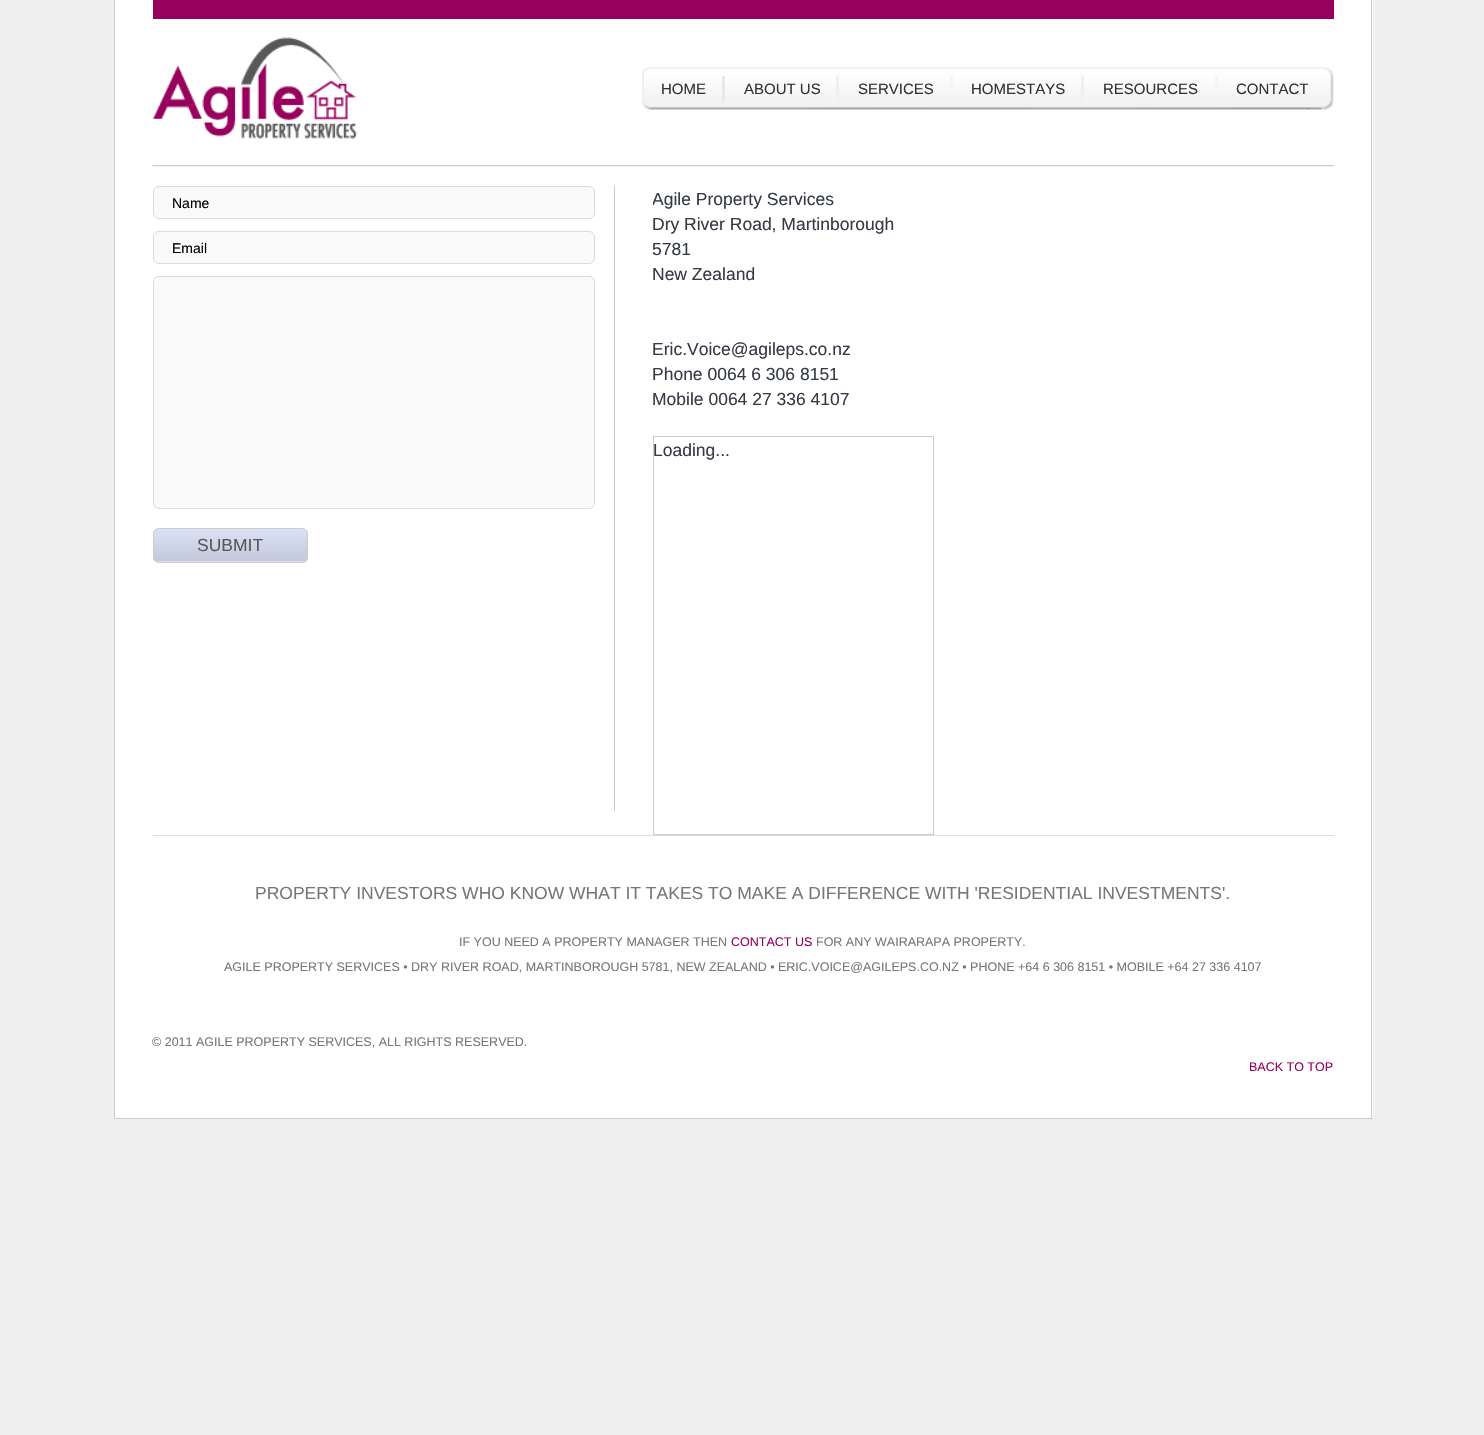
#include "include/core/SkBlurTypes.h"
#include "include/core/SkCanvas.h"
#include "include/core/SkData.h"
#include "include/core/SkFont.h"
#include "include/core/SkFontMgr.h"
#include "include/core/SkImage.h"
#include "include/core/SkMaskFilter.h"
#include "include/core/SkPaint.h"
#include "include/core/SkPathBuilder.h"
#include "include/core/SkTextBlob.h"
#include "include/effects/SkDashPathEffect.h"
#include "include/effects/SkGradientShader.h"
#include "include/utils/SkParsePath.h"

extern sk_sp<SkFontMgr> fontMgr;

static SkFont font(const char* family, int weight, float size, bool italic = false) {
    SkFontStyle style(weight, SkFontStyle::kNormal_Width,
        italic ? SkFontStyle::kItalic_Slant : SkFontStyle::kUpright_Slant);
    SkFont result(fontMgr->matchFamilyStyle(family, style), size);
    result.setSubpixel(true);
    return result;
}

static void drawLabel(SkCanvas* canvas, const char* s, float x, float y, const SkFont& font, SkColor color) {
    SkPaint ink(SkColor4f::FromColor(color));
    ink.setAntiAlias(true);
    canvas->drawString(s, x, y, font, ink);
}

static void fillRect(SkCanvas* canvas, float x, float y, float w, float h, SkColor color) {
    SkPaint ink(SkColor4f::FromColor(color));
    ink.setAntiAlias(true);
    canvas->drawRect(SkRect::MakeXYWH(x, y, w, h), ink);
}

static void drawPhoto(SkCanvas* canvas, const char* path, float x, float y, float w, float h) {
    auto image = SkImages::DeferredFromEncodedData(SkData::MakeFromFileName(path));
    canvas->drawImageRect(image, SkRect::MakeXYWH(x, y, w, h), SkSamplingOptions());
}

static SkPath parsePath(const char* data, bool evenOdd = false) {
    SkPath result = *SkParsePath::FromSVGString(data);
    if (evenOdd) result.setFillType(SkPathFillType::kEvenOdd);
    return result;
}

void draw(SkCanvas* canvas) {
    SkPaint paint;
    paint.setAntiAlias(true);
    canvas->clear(0xFFEFEFEF);
    fillRect(canvas, 115, 0, 1258, 1118, 0xFFFFFFFF);
    fillRect(canvas, 1371, 0, 1, 1119, 0xFFCCCCCC);
    fillRect(canvas, 114, 1118, 1259, 1, 0xFFCCCCCC);
    fillRect(canvas, 114, 0, 1, 1119, 0xFFCCCCCC);
    drawPhoto(canvas, "assets/img1.png", 152, 165, 1182, 2);
    fillRect(canvas, 153, 0, 1181, 19, 0xFF98005D);
    drawPhoto(canvas, "assets/img2.png", 152, 37, 205, 102);
    drawPhoto(canvas, "assets/img3.png", 1307, 67, 27, 43);
    drawPhoto(canvas, "assets/img4.png", 642, 67, 680, 43);
    drawPhoto(canvas, "assets/img5.png", 642, 67, 667, 43);
    fillRect(canvas, 722, 76, 3, 25, 0xFFE8E8E8);
    SkFont font1 = font("Liberation Sans", 400, 15);
    drawLabel(canvas, "HOME", 661, 94, font1, 0xFF333333);
    fillRect(canvas, 836, 76, 3, 25, 0xFFF0F0F0);
    drawLabel(canvas, "ABOUT US", 744, 94, font1, 0xFF333333);
    fillRect(canvas, 950, 76, 3, 13, 0xFFF5F5F5);
    drawLabel(canvas, "SERVICES", 858, 94, font1, 0xFF333333);
    fillRect(canvas, 1081, 76, 3, 25, 0xFFF0F0F0);
    drawLabel(canvas, "HOMESTAYS", 971, 94, font1, 0xFF333333);
    fillRect(canvas, 1215, 76, 3, 13, 0xFFF5F5F5);
    drawLabel(canvas, "RESOURCES", 1103, 94, font1, 0xFF333333);
    drawLabel(canvas, "CONTACT", 1236, 94, font1, 0xFF333333);
    fillRect(canvas, 614, 186, 1, 625, 0xFFCCCCCC);
    paint.setColor(0xFFFAFAFA);
    canvas->drawRoundRect(SkRect::MakeXYWH(153.5f, 186.5f, 441, 32), 5.5f, 5.5f, paint);
    paint.setStroke(true);
    paint.setStrokeWidth(1);
    paint.setColor(0xFFDADADA);
    canvas->drawRoundRect(SkRect::MakeXYWH(153.5f, 186.5f, 441, 32), 5.5f, 5.5f, paint);
    SkFont font2 = font("Liberation Sans", 400, 14);
    drawLabel(canvas, "Name", 172, 208, font2, 0xFF000000);
    paint.setStroke(false);
    paint.setColor(0xFFFAFAFA);
    canvas->drawRoundRect(SkRect::MakeXYWH(153.5f, 231.5f, 441, 32), 5.5f, 5.5f, paint);
    paint.setStroke(true);
    paint.setColor(0xFFDADADA);
    canvas->drawRoundRect(SkRect::MakeXYWH(153.5f, 231.5f, 441, 32), 5.5f, 5.5f, paint);
    drawLabel(canvas, "Email", 172, 253, font2, 0xFF000000);
    paint.setStroke(false);
    paint.setColor(0xFFFAFAFA);
    canvas->drawRoundRect(SkRect::MakeXYWH(153.5f, 276.5f, 441, 232), 5.5f, 5.5f, paint);
    paint.setStroke(true);
    paint.setColor(0xFFDADADA);
    canvas->drawRoundRect(SkRect::MakeXYWH(153.5f, 276.5f, 441, 232), 5.5f, 5.5f, paint);
    canvas->save();
    canvas->clipPath(parsePath("M159 528H302C305.5 528 308 530.5 308 534V557C308 560.5 305.5 563 302 563H159C155.5 563 153 560.5 153 557V534C153 530.5 155.5 528 159 528Z"), true);
    paint.setStroke(false);
    {
        const SkColor colors[] = {0xFFDAE1F5, 0xFFC3C9DA};
        const float stops[] = {0, 1};
        const SkPoint ends[] = {{154, 529}, {154, 561}};
        paint.setShader(SkGradientShader::MakeLinear(ends, colors, stops, 2, SkTileMode::kClamp));
        paint.setAlpha(255);
    }
    canvas->drawRect(SkRect::MakeXYWH(153, 529, 155, 32), paint);
    {
        const SkColor colors[] = {0xFFDAE1F5, 0xFFC3C9DA};
        const float stops[] = {0, 1};
        const SkPoint ends[] = {{154, 561}, {154, 594}};
        paint.setShader(SkGradientShader::MakeLinear(ends, colors, stops, 2, SkTileMode::kClamp));
        paint.setAlpha(255);
    }
    canvas->drawRect(SkRect::MakeXYWH(153, 561, 155, 2), paint);
    canvas->restore();
    paint.setStroke(true);
    paint.setShader(nullptr);
    paint.setColor(0xFFCCCCCC);
    canvas->drawRoundRect(SkRect::MakeXYWH(153.5f, 528.5f, 154, 34), 5.5f, 5.5f, paint);
    SkFont font3 = font("Liberation Sans", 400, 17.5f);
    drawLabel(canvas, "SUBMIT", 197, 551, font3, 0xFF55575B);
    canvas->save();
    canvas->clipRect(SkRect::MakeXYWH(653, 186, 281, 649));
    drawLabel(canvas, "Agile Property Services", 652, 205, font3, 0xFF353A44);
    canvas->restore();
    drawLabel(canvas, "Dry River Road, Martinborough", 652, 230, font3, 0xFF353A44);
    drawLabel(canvas, "5781", 652, 255, font3, 0xFF353A44);
    drawLabel(canvas, "New Zealand", 652, 280, font3, 0xFF353A44);
    drawLabel(canvas, "Eric.Voice@agileps.co.nz", 652, 355, font3, 0xFF353A44);
    drawLabel(canvas, "Phone 0064 6 306 8151", 652, 380, font3, 0xFF353A44);
    drawLabel(canvas, "Mobile 0064 27 336 4107", 652, 405, font3, 0xFF353A44);
    canvas->drawRect(SkRect::MakeXYWH(653.5f, 436.5f, 280, 398), paint);
    drawLabel(canvas, "Loading...", 653, 456, font3, 0xFF353A44);
    fillRect(canvas, 153, 835, 1181, 1, 0xFFDDDDDD);
    drawLabel(canvas, "PROPERTY INVESTORS WHO KNOW WHAT IT TAKES TO MAKE A DIFFERENCE WITH 'RESIDENTIAL INVESTMENTS'.", 255, 899, font3, 0xFF777777);
    SkFont font4 = font("Liberation Sans", 400, 12.5f);
    drawLabel(canvas, "IF YOU NEED A PROPERTY MANAGER THEN", 459, 946, font4, 0xFF777777);
    drawLabel(canvas, "CONTACT US", 731, 946, font4, 0xFF98005D);
    drawLabel(canvas, "FOR ANY WAIRARAPA PROPERTY.", 816, 946, font4, 0xFF777777);
    drawLabel(canvas, "AGILE PROPERTY SERVICES • DRY RIVER ROAD, MARTINBOROUGH 5781, NEW ZEALAND • ERIC.VOICE@AGILEPS.CO.NZ • PHONE +64 6 306 8151 • MOBILE +64 27 336 4107", 224, 971, font4, 0xFF777777);
    drawLabel(canvas, "© 2011 AGILE PROPERTY SERVICES, ALL RIGHTS RESERVED.", 152, 1046, font4, 0xFF777777);
    drawLabel(canvas, "BACK TO TOP", 1249, 1071, font4, 0xFF98005D);
}
